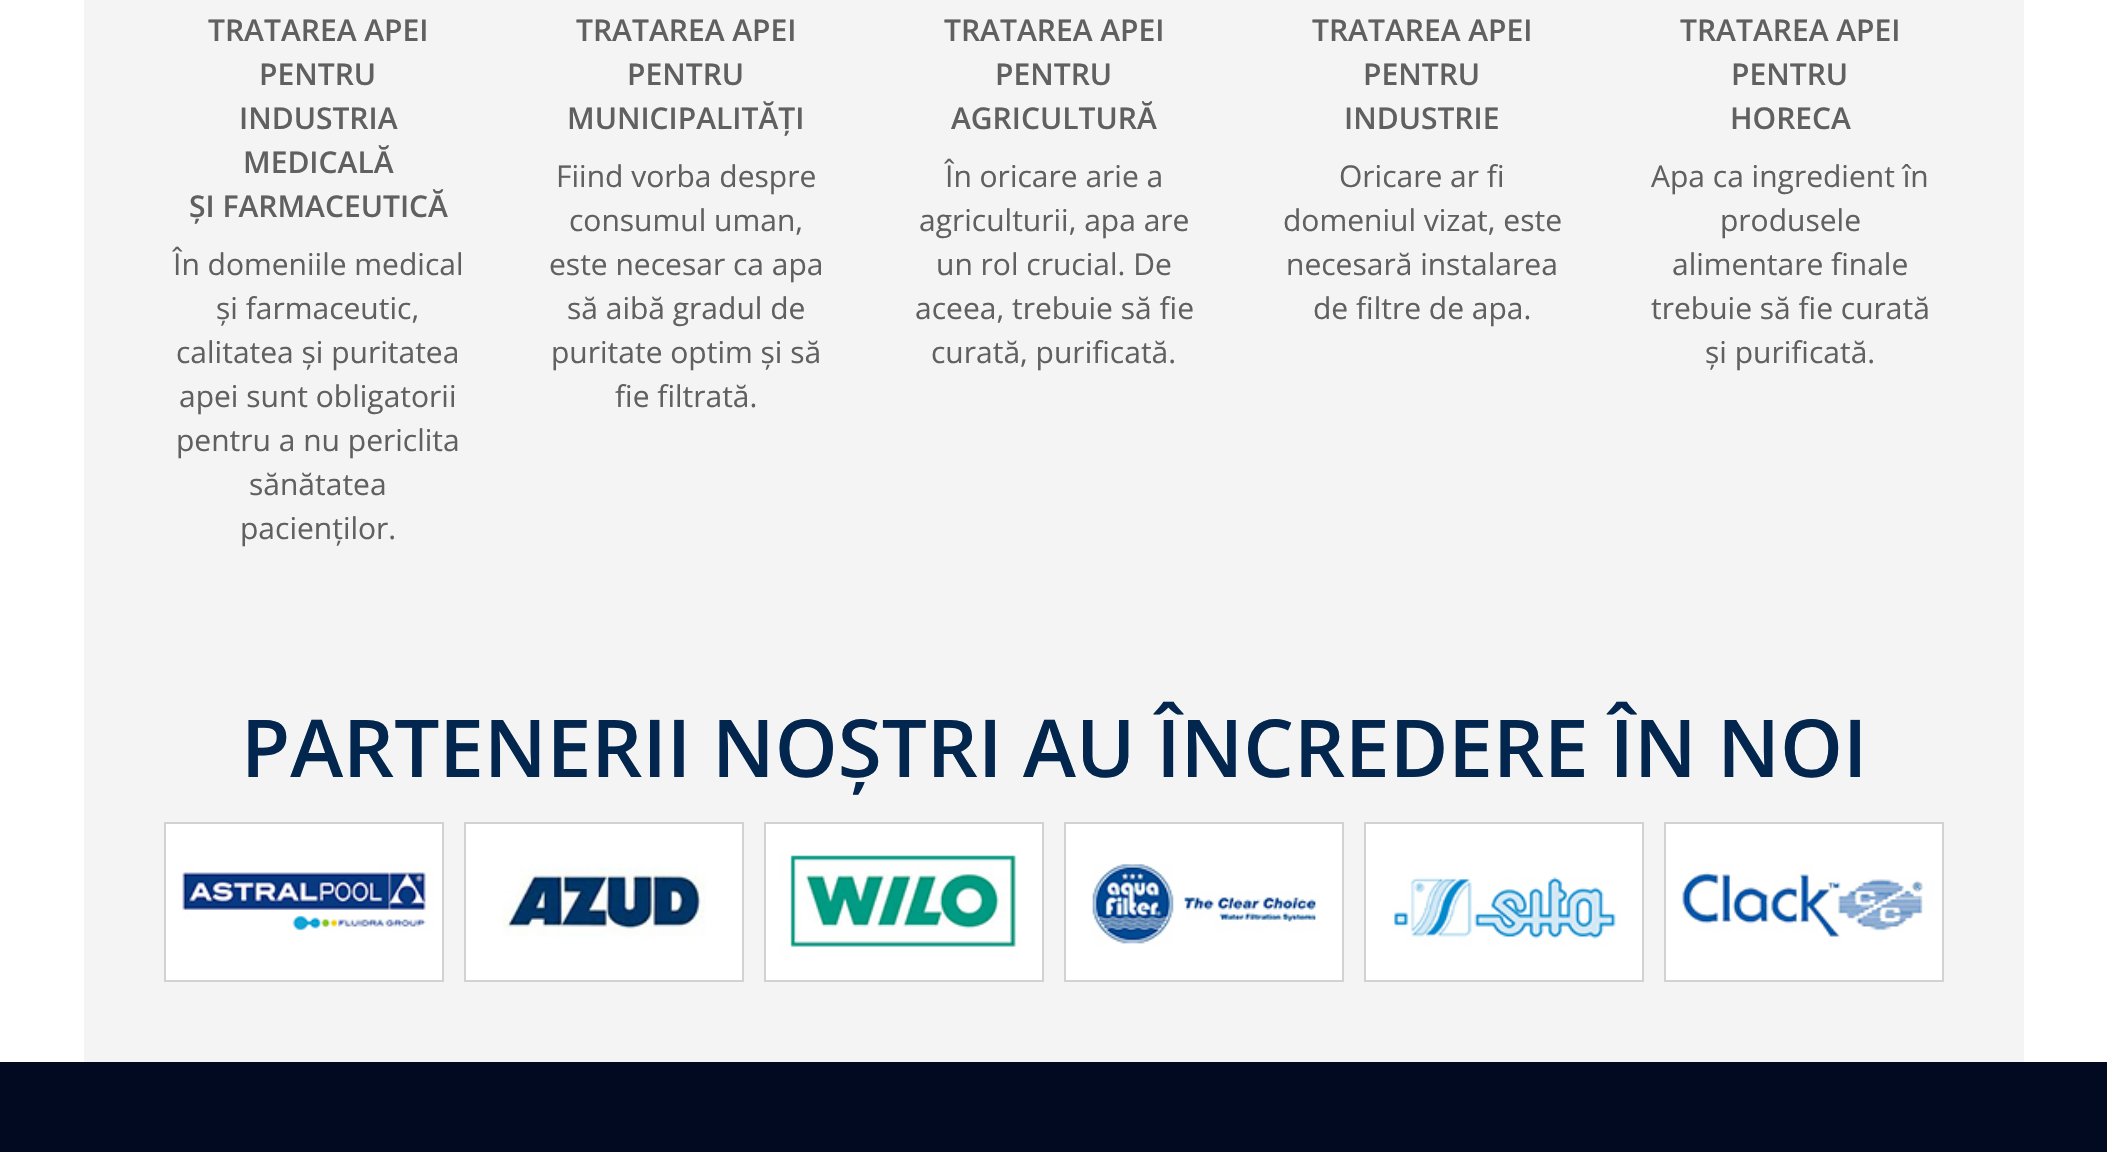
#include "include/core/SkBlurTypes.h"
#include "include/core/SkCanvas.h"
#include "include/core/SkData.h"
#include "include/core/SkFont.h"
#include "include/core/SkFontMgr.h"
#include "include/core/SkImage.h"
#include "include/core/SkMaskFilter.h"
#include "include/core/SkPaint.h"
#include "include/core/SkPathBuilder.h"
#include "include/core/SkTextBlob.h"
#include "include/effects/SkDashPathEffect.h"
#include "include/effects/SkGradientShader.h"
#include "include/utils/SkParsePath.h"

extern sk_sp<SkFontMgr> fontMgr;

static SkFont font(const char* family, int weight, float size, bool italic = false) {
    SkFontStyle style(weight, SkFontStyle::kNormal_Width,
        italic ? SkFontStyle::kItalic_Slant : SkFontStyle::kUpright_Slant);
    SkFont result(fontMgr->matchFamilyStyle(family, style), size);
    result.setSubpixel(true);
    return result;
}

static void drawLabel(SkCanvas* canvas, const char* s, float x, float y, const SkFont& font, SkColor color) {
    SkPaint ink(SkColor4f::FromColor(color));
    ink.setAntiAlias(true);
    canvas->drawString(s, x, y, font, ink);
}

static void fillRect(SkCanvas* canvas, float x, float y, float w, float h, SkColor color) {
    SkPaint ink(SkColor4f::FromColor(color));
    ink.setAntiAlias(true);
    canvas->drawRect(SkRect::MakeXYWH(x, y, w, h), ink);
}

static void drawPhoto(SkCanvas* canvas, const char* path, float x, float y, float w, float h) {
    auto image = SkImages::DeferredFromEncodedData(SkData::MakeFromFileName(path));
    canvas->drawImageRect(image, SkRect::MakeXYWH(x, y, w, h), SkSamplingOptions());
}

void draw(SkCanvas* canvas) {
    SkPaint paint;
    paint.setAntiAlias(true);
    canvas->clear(0xFFFFFFFF);
    fillRect(canvas, 84, 0, 1940, 1062, 0xFFF4F4F4);
    SkFont font1 = font("Open Sans", 600, 30);
    drawLabel(canvas, "TRATAREA APEI", 208, 41, font1, 0xFF606060);
    drawLabel(canvas, "PENTRU", 259, 85, font1, 0xFF606060);
    drawLabel(canvas, "INDUSTRIA", 239, 129, font1, 0xFF606060);
    drawLabel(canvas, "MEDICALĂ", 243, 173, font1, 0xFF606060);
    drawLabel(canvas, "ȘI FARMACEUTICĂ", 189, 217, font1, 0xFF606060);
    SkFont font2 = font("Open Sans", 400, 30);
    drawLabel(canvas, "În domeniile medical", 173, 275, font2, 0xFF606060);
    drawLabel(canvas, "și farmaceutic,", 216, 319, font2, 0xFF606060);
    drawLabel(canvas, "calitatea și puritatea", 176, 363, font2, 0xFF606060);
    drawLabel(canvas, "apei sunt obligatorii", 179, 407, font2, 0xFF606060);
    drawLabel(canvas, "pentru a nu periclita", 176, 451, font2, 0xFF606060);
    drawLabel(canvas, "sănătatea", 249, 495, font2, 0xFF606060);
    drawLabel(canvas, "pacienților.", 240, 539, font2, 0xFF606060);
    drawLabel(canvas, "TRATAREA APEI", 576, 41, font1, 0xFF606060);
    drawLabel(canvas, "PENTRU", 627, 85, font1, 0xFF606060);
    drawLabel(canvas, "MUNICIPALITĂȚI", 567, 129, font1, 0xFF606060);
    drawLabel(canvas, "Fiind vorba despre", 556, 187, font2, 0xFF606060);
    drawLabel(canvas, "consumul uman,", 569, 231, font2, 0xFF606060);
    drawLabel(canvas, "este necesar ca apa", 549, 275, font2, 0xFF606060);
    drawLabel(canvas, "să aibă gradul de", 567, 319, font2, 0xFF606060);
    drawLabel(canvas, "puritate optim și să", 551, 363, font2, 0xFF606060);
    drawLabel(canvas, "fie filtrată.", 615, 407, font2, 0xFF606060);
    drawLabel(canvas, "TRATAREA APEI", 944, 41, font1, 0xFF606060);
    drawLabel(canvas, "PENTRU", 995, 85, font1, 0xFF606060);
    drawLabel(canvas, "AGRICULTURĂ", 951, 129, font1, 0xFF606060);
    drawLabel(canvas, "În oricare arie a", 945, 187, font2, 0xFF606060);
    drawLabel(canvas, "agriculturii, apa are", 919, 231, font2, 0xFF606060);
    drawLabel(canvas, "un rol crucial. De", 936, 275, font2, 0xFF606060);
    drawLabel(canvas, "aceea, trebuie să fie", 915, 319, font2, 0xFF606060);
    drawLabel(canvas, "curată, purificată.", 931, 363, font2, 0xFF606060);
    drawLabel(canvas, "TRATAREA APEI", 1312, 41, font1, 0xFF606060);
    drawLabel(canvas, "PENTRU", 1363, 85, font1, 0xFF606060);
    drawLabel(canvas, "INDUSTRIE", 1344, 129, font1, 0xFF606060);
    drawLabel(canvas, "Oricare ar fi", 1339, 187, font2, 0xFF606060);
    drawLabel(canvas, "domeniul vizat, este", 1283, 231, font2, 0xFF606060);
    drawLabel(canvas, "necesară instalarea", 1286, 275, font2, 0xFF606060);
    drawLabel(canvas, "de filtre de apa.", 1313, 319, font2, 0xFF606060);
    drawLabel(canvas, "TRATAREA APEI", 1680, 41, font1, 0xFF606060);
    drawLabel(canvas, "PENTRU", 1731, 85, font1, 0xFF606060);
    drawLabel(canvas, "HORECA", 1730, 129, font1, 0xFF606060);
    drawLabel(canvas, "Apa ca ingredient în", 1651, 187, font2, 0xFF606060);
    drawLabel(canvas, "produsele", 1720, 231, font2, 0xFF606060);
    drawLabel(canvas, "alimentare finale", 1672, 275, font2, 0xFF606060);
    drawLabel(canvas, "trebuie să fie curată", 1651, 319, font2, 0xFF606060);
    drawLabel(canvas, "și purificată.", 1705, 363, font2, 0xFF606060);
    SkFont font3 = font("Open Sans", 600, 80);
    drawLabel(canvas, "PARTENERII NOȘTRI AU ÎNCREDERE ÎN NOI", 241, 777, font3, 0xFF02264D);
    paint.setStroke(true);
    paint.setStrokeWidth(2);
    paint.setColor(0xFFD2D2D2);
    canvas->drawRect(SkRect::MakeXYWH(165, 823, 278, 158), paint);
    drawPhoto(canvas, "assets/img1.png", 166, 824, 276, 156);
    canvas->drawRect(SkRect::MakeXYWH(465, 823, 278, 158), paint);
    drawPhoto(canvas, "assets/img2.png", 466, 824, 276, 156);
    canvas->drawRect(SkRect::MakeXYWH(765, 823, 278, 158), paint);
    drawPhoto(canvas, "assets/img3.png", 766, 824, 276, 156);
    canvas->drawRect(SkRect::MakeXYWH(1065, 823, 278, 158), paint);
    drawPhoto(canvas, "assets/img4.png", 1066, 824, 276, 156);
    canvas->drawRect(SkRect::MakeXYWH(1365, 823, 278, 158), paint);
    drawPhoto(canvas, "assets/img5.png", 1366, 824, 276, 156);
    canvas->drawRect(SkRect::MakeXYWH(1665, 823, 278, 158), paint);
    drawPhoto(canvas, "assets/img6.png", 1666, 824, 276, 156);
    fillRect(canvas, 0, 1062, 2107, 90, 0xFF010A20);
}
